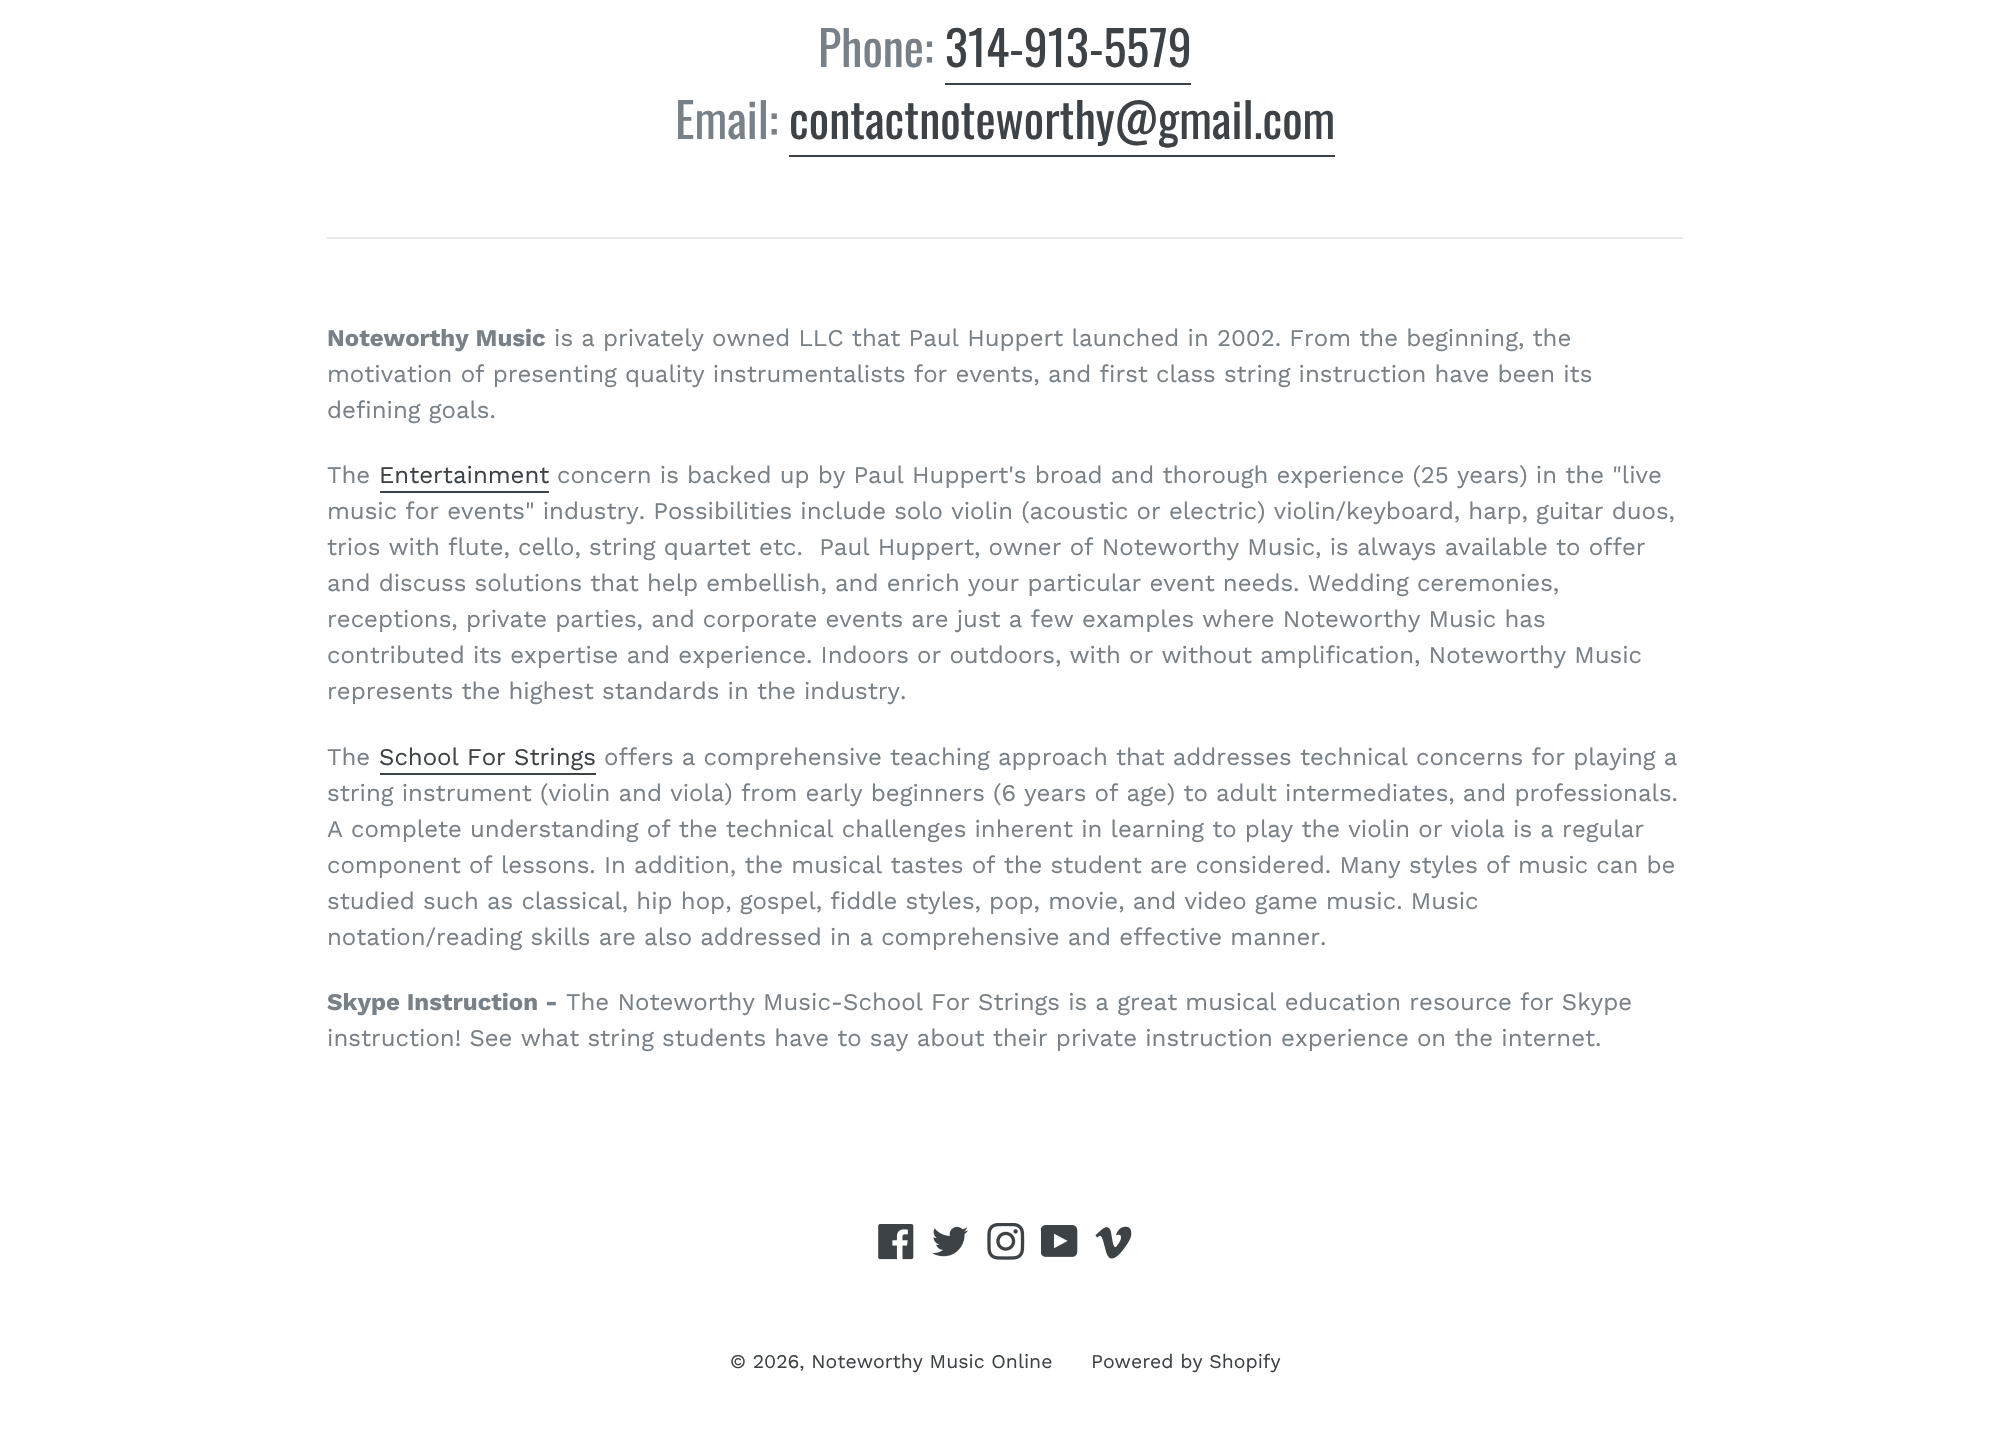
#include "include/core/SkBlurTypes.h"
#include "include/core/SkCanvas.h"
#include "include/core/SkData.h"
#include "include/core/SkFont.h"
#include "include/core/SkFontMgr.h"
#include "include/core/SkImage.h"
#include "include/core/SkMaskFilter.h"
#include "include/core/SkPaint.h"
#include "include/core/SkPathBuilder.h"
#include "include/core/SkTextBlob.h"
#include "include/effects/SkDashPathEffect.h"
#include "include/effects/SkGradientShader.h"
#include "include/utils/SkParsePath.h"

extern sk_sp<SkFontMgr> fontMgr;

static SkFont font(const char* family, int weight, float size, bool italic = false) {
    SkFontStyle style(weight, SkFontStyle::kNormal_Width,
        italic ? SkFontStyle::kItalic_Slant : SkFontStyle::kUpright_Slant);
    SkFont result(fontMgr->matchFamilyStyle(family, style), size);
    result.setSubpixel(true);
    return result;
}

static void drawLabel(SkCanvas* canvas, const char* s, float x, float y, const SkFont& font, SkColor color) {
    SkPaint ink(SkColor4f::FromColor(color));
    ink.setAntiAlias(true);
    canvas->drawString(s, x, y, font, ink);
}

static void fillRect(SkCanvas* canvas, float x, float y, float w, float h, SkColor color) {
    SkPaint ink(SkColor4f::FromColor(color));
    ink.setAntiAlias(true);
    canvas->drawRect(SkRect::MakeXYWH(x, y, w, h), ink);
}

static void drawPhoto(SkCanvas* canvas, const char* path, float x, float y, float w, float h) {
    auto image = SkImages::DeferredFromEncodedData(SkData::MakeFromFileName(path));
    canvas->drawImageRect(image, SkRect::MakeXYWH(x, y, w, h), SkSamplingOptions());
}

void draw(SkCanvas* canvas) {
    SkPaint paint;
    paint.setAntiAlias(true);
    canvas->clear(0xFFFFFFFF);
    SkFont font1 = font("Oswald", 400, 48);
    drawLabel(canvas, "Phone:", 818, 67, font1, 0xFF788188);
    drawLabel(canvas, "314-913-5579", 945, 67, font1, 0xFF3D4246);
    fillRect(canvas, 945, 83, 246, 2, 0xFF3D4246);
    drawLabel(canvas, "Email:", 675, 139, font1, 0xFF788188);
    drawLabel(canvas, "contactnoteworthy@gmail.com", 789, 139, font1, 0xFF3D4246);
    fillRect(canvas, 789, 155, 546, 2, 0xFF3D4246);
    fillRect(canvas, 327, 237, 1356, 2, 0xFFE8E9EB);
    SkFont font2 = font("Work Sans", 700, 24);
    drawLabel(canvas, "Noteworthy Music", 327, 346, font2, 0xFF788188);
    SkFont font3 = font("Work Sans", 400, 24);
    drawLabel(canvas, "is a privately owned LLC that Paul Huppert launched in 2002. From the beginning, the", 554, 346, font3, 0xFF788188);
    drawLabel(canvas, "motivation of presenting quality instrumentalists for events, and first class string instruction have been its", 327, 382, font3, 0xFF788188);
    drawLabel(canvas, "defining goals.", 327, 418, font3, 0xFF788188);
    drawLabel(canvas, "The", 327, 483, font3, 0xFF788188);
    drawLabel(canvas, "Entertainment", 379, 483, font3, 0xFF3D4246);
    fillRect(canvas, 380, 491, 169, 2, 0xFF3D4246);
    drawLabel(canvas, "concern is backed up by Paul Huppert's broad and thorough experience (25 years) in the \"live", 557, 483, font3, 0xFF788188);
    drawLabel(canvas, "music for events\" industry. Possibilities include solo violin (acoustic or electric) violin/keyboard, harp, guitar duos,", 327, 519, font3, 0xFF788188);
    drawLabel(canvas, "trios with flute, cello, string quartet etc.  Paul Huppert, owner of Noteworthy Music, is always available to offer", 327, 555, font3, 0xFF788188);
    drawLabel(canvas, "and discuss solutions that help embellish, and enrich your particular event needs. Wedding ceremonies,", 327, 591, font3, 0xFF788188);
    drawLabel(canvas, "receptions, private parties, and corporate events are just a few examples where Noteworthy Music has", 327, 627, font3, 0xFF788188);
    drawLabel(canvas, "contributed its expertise and experience. Indoors or outdoors, with or without amplification, Noteworthy Music", 327, 663, font3, 0xFF788188);
    drawLabel(canvas, "represents the highest standards in the industry.", 327, 699, font3, 0xFF788188);
    drawLabel(canvas, "The", 327, 765, font3, 0xFF788188);
    drawLabel(canvas, "School For Strings", 379, 765, font3, 0xFF3D4246);
    fillRect(canvas, 380, 773, 216, 2, 0xFF3D4246);
    drawLabel(canvas, "offers a comprehensive teaching approach that addresses technical concerns for playing a", 604, 765, font3, 0xFF788188);
    drawLabel(canvas, "string instrument (violin and viola) from early beginners (6 years of age) to adult intermediates, and professionals.", 327, 801, font3, 0xFF788188);
    drawLabel(canvas, "A complete understanding of the technical challenges inherent in learning to play the violin or viola is a regular", 327, 837, font3, 0xFF788188);
    drawLabel(canvas, "component of lessons. In addition, the musical tastes of the student are considered. Many styles of music can be", 327, 873, font3, 0xFF788188);
    drawLabel(canvas, "studied such as classical, hip hop, gospel, fiddle styles, pop, movie, and video game music. Music", 327, 909, font3, 0xFF788188);
    drawLabel(canvas, "notation/reading skills are also addressed in a comprehensive and effective manner.", 327, 945, font3, 0xFF788188);
    drawLabel(canvas, "Skype Instruction -", 327, 1010, font2, 0xFF788188);
    drawLabel(canvas, "The Noteworthy Music-School For Strings is a great musical education resource for Skype", 566, 1010, font3, 0xFF788188);
    drawLabel(canvas, "instruction! See what string students have to say about their private instruction experience on the internet.", 327, 1046, font3, 0xFF788188);
    drawPhoto(canvas, "assets/img1.png", 878, 1224, 36, 36);
    drawPhoto(canvas, "assets/img2.png", 932, 1226, 36, 31);
    drawPhoto(canvas, "assets/img3.png", 987, 1223, 38, 37);
    drawPhoto(canvas, "assets/img4.png", 1041, 1225, 37, 32);
    drawPhoto(canvas, "assets/img5.png", 1095, 1226, 37, 33);
    SkFont font4 = font("Work Sans", 400, 19.5f);
    drawLabel(canvas, "© 2026, Noteworthy Music Online", 730, 1368, font4, 0xFF3D4246);
    drawLabel(canvas, "Powered by Shopify", 1091, 1368, font4, 0xFF3D4246);
}
